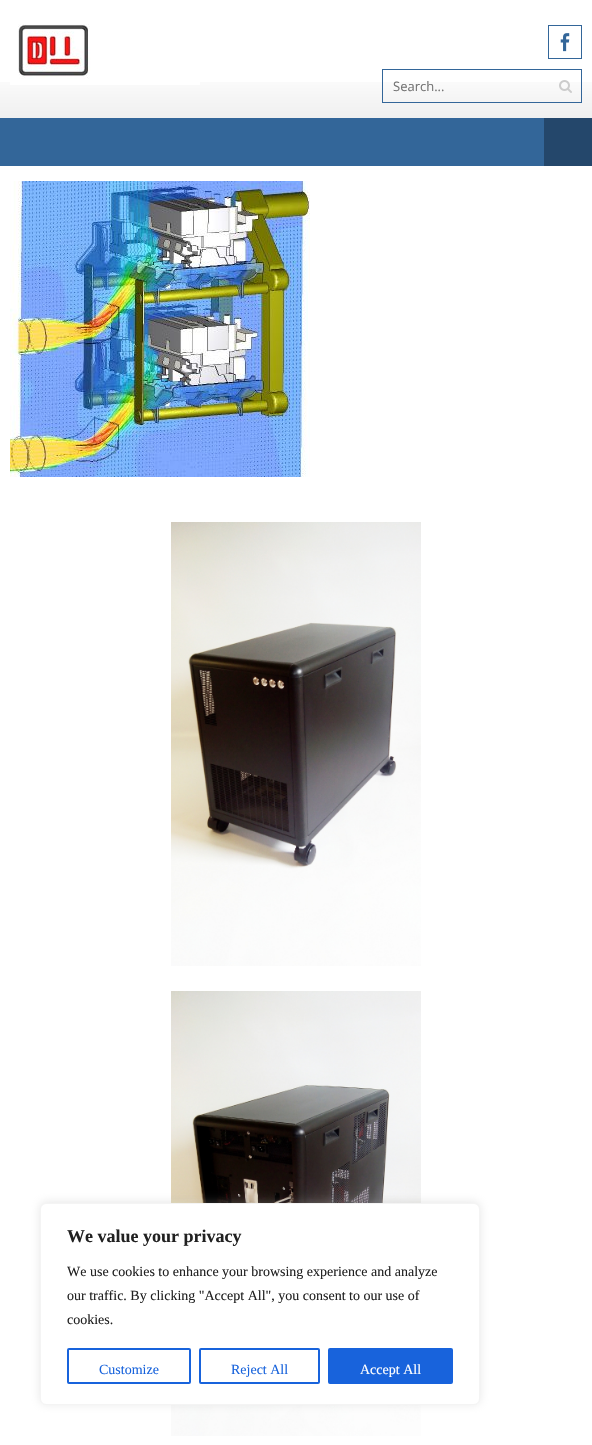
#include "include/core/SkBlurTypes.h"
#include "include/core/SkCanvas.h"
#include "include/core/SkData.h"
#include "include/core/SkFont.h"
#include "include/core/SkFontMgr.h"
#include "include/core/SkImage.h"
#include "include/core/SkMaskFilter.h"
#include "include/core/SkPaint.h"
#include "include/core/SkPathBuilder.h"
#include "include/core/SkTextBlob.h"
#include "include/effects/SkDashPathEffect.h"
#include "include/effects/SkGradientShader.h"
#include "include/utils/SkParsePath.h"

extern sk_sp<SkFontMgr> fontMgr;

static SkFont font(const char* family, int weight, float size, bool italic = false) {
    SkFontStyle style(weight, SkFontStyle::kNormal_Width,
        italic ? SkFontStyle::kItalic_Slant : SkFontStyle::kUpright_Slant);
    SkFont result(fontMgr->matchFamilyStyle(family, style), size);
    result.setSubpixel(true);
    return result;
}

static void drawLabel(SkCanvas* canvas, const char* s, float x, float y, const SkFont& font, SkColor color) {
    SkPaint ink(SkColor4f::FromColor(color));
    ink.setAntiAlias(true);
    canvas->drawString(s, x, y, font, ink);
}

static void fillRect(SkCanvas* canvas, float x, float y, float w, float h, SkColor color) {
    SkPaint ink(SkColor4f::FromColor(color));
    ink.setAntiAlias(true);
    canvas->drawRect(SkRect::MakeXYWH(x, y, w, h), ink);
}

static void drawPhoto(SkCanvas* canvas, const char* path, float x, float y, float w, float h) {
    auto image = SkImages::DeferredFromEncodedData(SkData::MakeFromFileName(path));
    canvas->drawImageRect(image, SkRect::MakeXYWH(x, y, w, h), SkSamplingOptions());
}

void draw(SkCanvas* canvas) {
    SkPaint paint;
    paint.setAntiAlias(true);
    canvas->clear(0xFFFFFFFF);
    drawPhoto(canvas, "assets/img1.png", 0, 82, 592, 36);
    drawPhoto(canvas, "assets/img2.png", 10, 24, 190, 61);
    paint.setStroke(true);
    paint.setStrokeWidth(1);
    paint.setColor(0xFF336699);
    canvas->drawRect(SkRect::MakeXYWH(548.5f, 25.5f, 33, 33), paint);
    drawPhoto(canvas, "assets/img3.png", 560, 33, 10, 19);
    canvas->drawRect(SkRect::MakeXYWH(382.5f, 69.5f, 199, 33), paint);
    SkFont font1 = font("Open Sans", 400, 13);
    drawLabel(canvas, "Search...", 393, 91, font1, 0xFF757575);
    drawPhoto(canvas, "assets/img4.png", 559, 80, 13, 13);
    fillRect(canvas, 0, 118, 544, 48, 0xFF336699);
    fillRect(canvas, 544, 118, 48, 48, 0xFF24476B);
    drawPhoto(canvas, "assets/img5.png", 10, 181, 300, 296);
    drawPhoto(canvas, "assets/img6.png", 171, 522, 250, 444);
    drawPhoto(canvas, "assets/img7.png", 171, 991, 250, 445);
    paint.setStroke(false);
    paint.setColor(0x4DACABAB);
    paint.setMaskFilter(SkMaskFilter::MakeBlur(kNormal_SkBlurStyle, 5));
    canvas->drawRoundRect(SkRect::MakeXYWH(40, 1202, 440, 202), 6, 6, paint);
    paint.setMaskFilter(nullptr);
    paint.setColor(0xFFFFFFFF);
    canvas->drawRoundRect(SkRect::MakeXYWH(40.5f, 1203.5f, 439, 201), 5.5f, 5.5f, paint);
    paint.setStroke(true);
    paint.setColor(0xFFF4F4F4);
    canvas->drawRoundRect(SkRect::MakeXYWH(40.5f, 1203.5f, 439, 201), 5.5f, 5.5f, paint);
    SkFont font2 = font("Liberation Serif", 700, 18);
    drawLabel(canvas, "We value your privacy", 67, 1242, font2, 0xFF212121);
    SkFont font3 = font("Liberation Serif", 400, 14);
    drawLabel(canvas, "We use cookies to enhance your browsing experience and analyze", 67, 1276, font3, 0xFF212121);
    drawLabel(canvas, "our traffic. By clicking \"Accept All\", you consent to our use of", 67, 1300, font3, 0xFF212121);
    drawLabel(canvas, "cookies.", 67, 1324, font3, 0xFF212121);
    paint.setStrokeWidth(2);
    paint.setColor(0xFF1863DC);
    canvas->drawRoundRect(SkRect::MakeXYWH(68, 1349, 122, 34), 1, 1, paint);
    drawLabel(canvas, "Customize", 99, 1374, font3, 0xFF1863DC);
    canvas->drawRoundRect(SkRect::MakeXYWH(200, 1349, 119, 34), 1, 1, paint);
    drawLabel(canvas, "Reject All", 231, 1374, font3, 0xFF1863DC);
    paint.setStroke(false);
    canvas->drawRoundRect(SkRect::MakeXYWH(329, 1349, 123, 34), 1, 1, paint);
    paint.setStroke(true);
    canvas->drawRoundRect(SkRect::MakeXYWH(329, 1349, 123, 34), 1, 1, paint);
    drawLabel(canvas, "Accept All", 360, 1374, font3, 0xFFFFFFFF);
}
